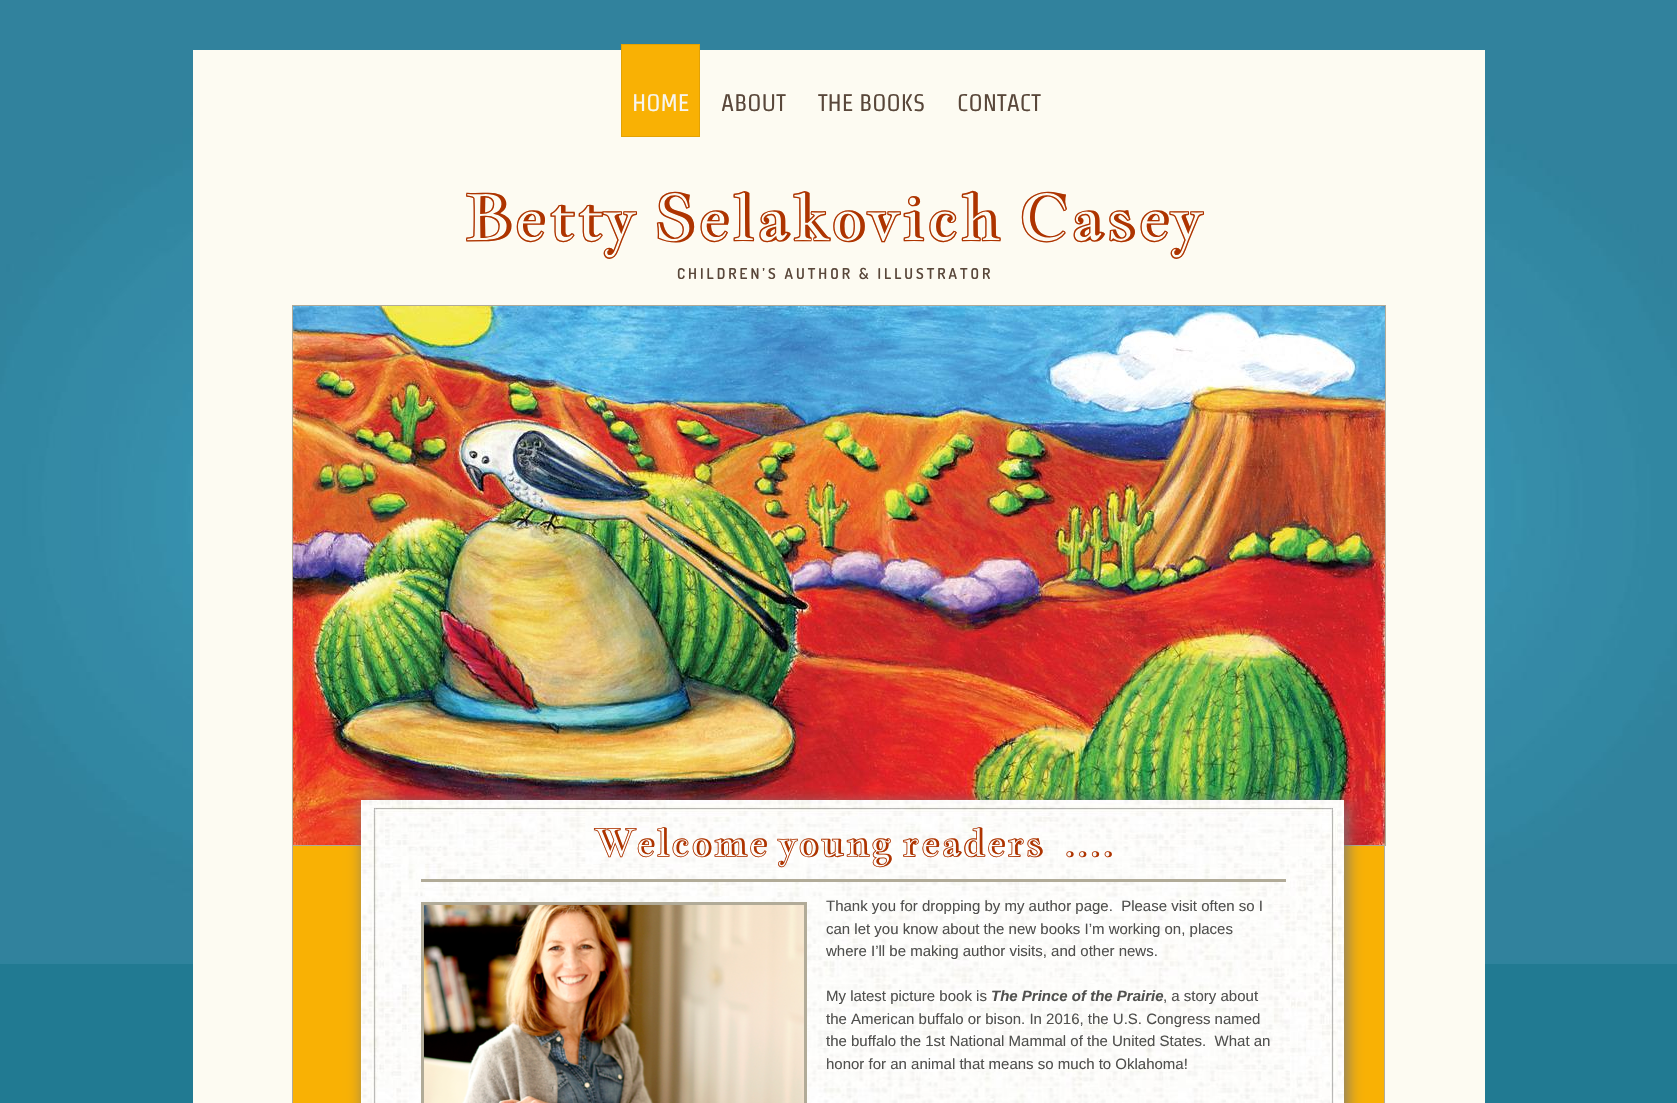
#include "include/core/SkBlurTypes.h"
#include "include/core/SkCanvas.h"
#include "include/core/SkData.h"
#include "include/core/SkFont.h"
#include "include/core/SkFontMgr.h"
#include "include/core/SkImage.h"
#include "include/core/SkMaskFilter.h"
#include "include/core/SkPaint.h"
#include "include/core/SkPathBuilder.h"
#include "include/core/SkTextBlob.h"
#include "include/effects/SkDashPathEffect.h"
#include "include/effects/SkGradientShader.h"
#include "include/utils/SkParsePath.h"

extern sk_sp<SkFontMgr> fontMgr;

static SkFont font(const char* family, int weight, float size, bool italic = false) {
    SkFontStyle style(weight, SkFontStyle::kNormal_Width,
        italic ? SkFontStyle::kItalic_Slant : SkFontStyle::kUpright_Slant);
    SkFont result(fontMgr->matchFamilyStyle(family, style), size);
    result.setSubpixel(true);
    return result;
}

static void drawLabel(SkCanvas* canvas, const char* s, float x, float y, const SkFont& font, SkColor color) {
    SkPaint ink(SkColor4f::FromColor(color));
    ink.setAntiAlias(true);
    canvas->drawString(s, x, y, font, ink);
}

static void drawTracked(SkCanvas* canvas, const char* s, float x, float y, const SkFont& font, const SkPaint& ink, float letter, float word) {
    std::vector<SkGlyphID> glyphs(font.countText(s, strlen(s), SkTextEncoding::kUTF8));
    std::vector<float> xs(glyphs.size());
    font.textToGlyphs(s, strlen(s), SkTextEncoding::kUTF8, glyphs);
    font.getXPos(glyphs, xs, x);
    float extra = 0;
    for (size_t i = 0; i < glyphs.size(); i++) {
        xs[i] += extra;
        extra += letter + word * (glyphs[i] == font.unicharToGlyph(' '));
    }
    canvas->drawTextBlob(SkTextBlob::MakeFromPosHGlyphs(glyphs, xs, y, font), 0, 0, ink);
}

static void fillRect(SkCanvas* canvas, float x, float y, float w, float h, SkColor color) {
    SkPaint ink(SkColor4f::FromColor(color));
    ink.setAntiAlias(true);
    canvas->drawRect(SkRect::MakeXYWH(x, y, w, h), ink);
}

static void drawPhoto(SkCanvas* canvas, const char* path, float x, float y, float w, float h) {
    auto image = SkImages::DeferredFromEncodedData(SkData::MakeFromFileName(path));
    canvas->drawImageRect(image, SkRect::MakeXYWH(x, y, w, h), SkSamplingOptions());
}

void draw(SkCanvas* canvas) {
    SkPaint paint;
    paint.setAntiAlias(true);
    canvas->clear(0xFF217A92);
    drawPhoto(canvas, "assets/img1.png", 0, 0, 1677, 964);
    fillRect(canvas, 193, 50, 1292, 1053, 0xFFFDFBF2);
    paint.setColor(0xFFF9B104);
    canvas->drawRect(SkRect::MakeXYWH(621.5f, 44.5f, 78, 92), paint);
    paint.setStroke(true);
    paint.setStrokeWidth(1);
    paint.setColor(0xFFE3A204);
    canvas->drawRect(SkRect::MakeXYWH(621.5f, 44.5f, 78, 92), paint);
    SkFont font1 = font("Strait", 400, 24);
    drawLabel(canvas, "HOME", 632, 111, font1, 0xFFF7F5EF);
    drawLabel(canvas, "ABOUT", 721, 111, font1, 0xFF59473A);
    drawLabel(canvas, "THE BOOKS", 818, 111, font1, 0xFF59473A);
    drawLabel(canvas, "CONTACT", 957, 111, font1, 0xFF59473A);
    SkFont font2 = font("Jacques Francois Shadow", 400, 64);
    drawLabel(canvas, "Betty Selakovich Casey", 464, 240, font2, 0xFFAE3400);
    SkFont font3 = font("Dosis", 600, 15);
    paint.setStroke(false);
    paint.setColor(0xFF59473A);
    drawTracked(canvas, "CHILDREN’S AUTHOR & ILLUSTRATOR", 677, 279, font3, paint, 3, 0);
    fillRect(canvas, 293, 846, 1091, 257, 0xFFF9B104);
    paint.setStroke(true);
    paint.setColor(0xFFB1AB98);
    canvas->drawRect(SkRect::MakeXYWH(292.5f, 843.5f, 1092, 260), paint);
    canvas->drawRect(SkRect::MakeXYWH(292.5f, 305.5f, 1093, 540), paint);
    drawPhoto(canvas, "assets/img2.png", 293, 306, 1092, 539);
    paint.setStroke(false);
    paint.setColor(0xFF777777);
    paint.setMaskFilter(SkMaskFilter::MakeBlur(kNormal_SkBlurStyle, 7.5f));
    canvas->drawRect(SkRect::MakeXYWH(364, 803, 983, 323), paint);
    paint.setMaskFilter(nullptr);
    drawPhoto(canvas, "assets/img3.png", 361, 800, 983, 303);
    SkFont font4 = font("Jacques Francois Shadow", 400, 38);
    drawLabel(canvas, "Welcome young readers  ....", 594, 856, font4, 0xFFAE3400);
    fillRect(canvas, 421, 879, 865, 3, 0xFFB1AB98);
    paint.setStroke(true);
    paint.setStrokeWidth(3);
    paint.setColor(0xFFB1AB98);
    canvas->drawRect(SkRect::MakeXYWH(422.5f, 903.5f, 383, 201), paint);
    drawPhoto(canvas, "assets/img4.png", 424, 905, 380, 198);
    SkFont font5 = font("Liberation Sans", 400, 15);
    drawLabel(canvas, "Thank you for dropping by my author page.  Please visit often so I", 826, 911, font5, 0xFF50504E);
    drawLabel(canvas, "can let you know about the new books I’m working on, places", 826, 934, font5, 0xFF50504E);
    drawLabel(canvas, "where I’ll be making author visits, and other news.", 826, 956, font5, 0xFF50504E);
    drawLabel(canvas, "My latest picture book is", 826, 1001, font5, 0xFF50504E);
    SkFont font6 = font("Liberation Sans", 700, 15, true);
    drawLabel(canvas, "The Prince of the Prairie", 991, 1001, font6, 0xFF50504E);
    drawLabel(canvas, ", a story about", 1163, 1001, font5, 0xFF50504E);
    drawLabel(canvas, "the American buffalo or bison. In 2016, the U.S. Congress named", 826, 1024, font5, 0xFF50504E);
    drawLabel(canvas, "the buffalo the 1st National Mammal of the United States.  What an", 826, 1046, font5, 0xFF50504E);
    drawLabel(canvas, "honor for an animal that means so much to Oklahoma!", 826, 1069, font5, 0xFF50504E);
}
